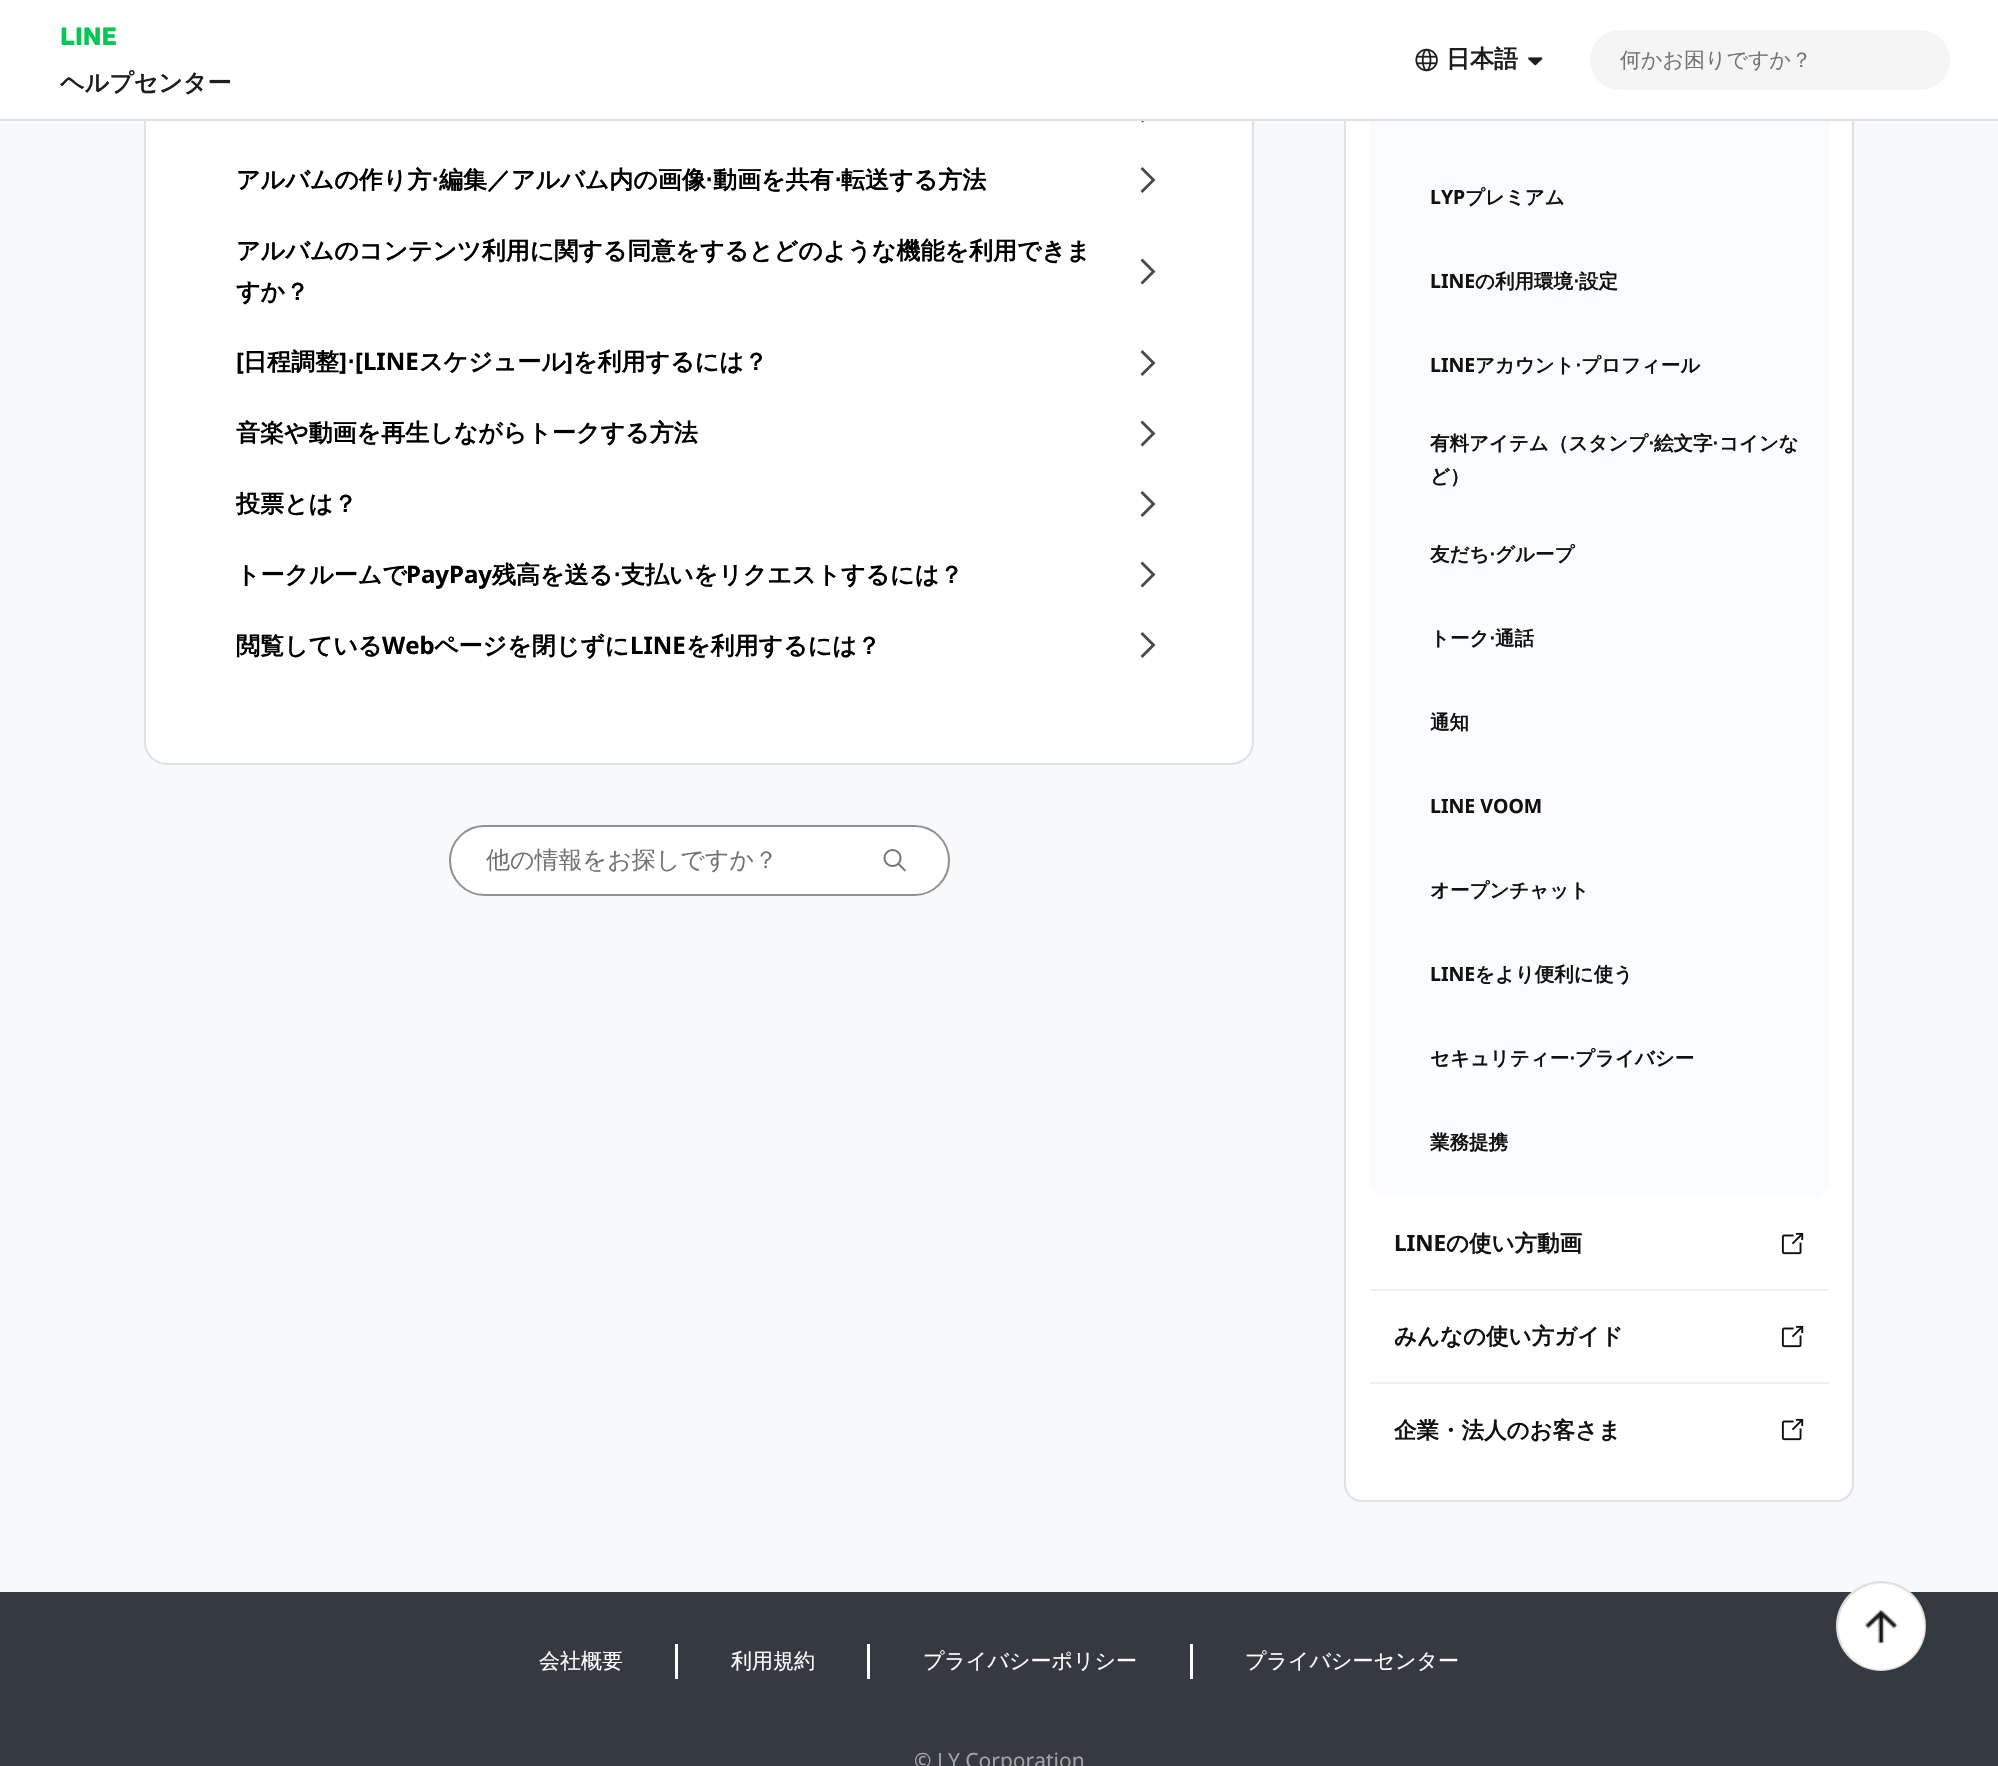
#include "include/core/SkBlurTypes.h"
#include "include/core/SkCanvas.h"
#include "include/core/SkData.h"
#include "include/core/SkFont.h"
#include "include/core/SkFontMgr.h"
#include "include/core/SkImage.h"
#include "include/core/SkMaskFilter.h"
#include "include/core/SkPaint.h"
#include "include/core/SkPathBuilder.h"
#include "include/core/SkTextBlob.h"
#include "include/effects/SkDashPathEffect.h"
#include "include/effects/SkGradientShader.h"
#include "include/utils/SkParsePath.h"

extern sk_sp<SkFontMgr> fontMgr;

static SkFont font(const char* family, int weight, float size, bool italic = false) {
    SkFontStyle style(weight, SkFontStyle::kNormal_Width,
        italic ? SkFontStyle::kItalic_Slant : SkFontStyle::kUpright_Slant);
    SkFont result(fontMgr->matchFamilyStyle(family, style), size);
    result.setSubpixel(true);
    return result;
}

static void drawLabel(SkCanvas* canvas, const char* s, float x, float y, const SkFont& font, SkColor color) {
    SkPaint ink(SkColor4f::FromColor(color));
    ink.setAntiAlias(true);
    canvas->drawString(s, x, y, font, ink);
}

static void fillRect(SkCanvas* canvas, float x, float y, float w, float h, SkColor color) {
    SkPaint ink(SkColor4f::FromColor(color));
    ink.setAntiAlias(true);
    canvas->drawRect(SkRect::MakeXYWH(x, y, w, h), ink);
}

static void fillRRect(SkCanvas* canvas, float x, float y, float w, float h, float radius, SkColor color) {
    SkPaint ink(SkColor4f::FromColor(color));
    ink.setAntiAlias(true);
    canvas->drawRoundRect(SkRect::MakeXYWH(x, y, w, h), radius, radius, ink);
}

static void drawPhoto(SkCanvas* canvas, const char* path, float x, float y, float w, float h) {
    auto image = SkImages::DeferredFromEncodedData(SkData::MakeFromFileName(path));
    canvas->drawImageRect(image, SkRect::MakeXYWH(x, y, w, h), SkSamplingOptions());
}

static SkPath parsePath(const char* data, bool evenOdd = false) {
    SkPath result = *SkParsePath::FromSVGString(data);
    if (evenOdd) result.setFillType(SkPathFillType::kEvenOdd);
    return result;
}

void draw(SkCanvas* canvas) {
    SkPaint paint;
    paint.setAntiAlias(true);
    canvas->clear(0xFFF8F9FA);
    paint.setColor(0xFFFFFFFF);
    canvas->drawRoundRect(SkRect::MakeXYWH(145, -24, 1108, 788), 22, 22, paint);
    paint.setStroke(true);
    paint.setStrokeWidth(2);
    paint.setColor(0xFFDEE2E6);
    canvas->drawRoundRect(SkRect::MakeXYWH(145, -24, 1108, 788), 22, 22, paint);
    paint.setStroke(false);
    paint.setColor(0xFF4A4A4A);
    canvas->drawPath(parsePath("M1142.5 96.5L1155.5 109.5L1142.5 122.5L1140.5 120.5L1151.5 109.5L1140.5 98.5Z"), paint);
    paint.setColor(0xFFFFFFFF);
    canvas->drawRoundRect(SkRect::MakeXYWH(1345, -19, 508, 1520), 17, 17, paint);
    paint.setStroke(true);
    paint.setColor(0xFFDEE2E6);
    canvas->drawRoundRect(SkRect::MakeXYWH(1345, -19, 508, 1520), 17, 17, paint);
    fillRRect(canvas, 1370, -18, 459, 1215, 18, 0xFFF9FBFC);
    fillRect(canvas, 0, 0, 1998, 119, 0xFFFFFFFF);
    fillRect(canvas, 0, 119, 1998, 2, 0xFFDEE2E6);
    SkFont font1 = font("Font", 800, 24);
    drawLabel(canvas, "LINE", 60, 45, font1, 0xFF06C755);
    SkFont font2 = font("WenQuanYi Zen Hei", 700, 24);
    drawLabel(canvas, "ヘルプセンター", 60, 91, font2, 0xFF1E1E1E);
    drawPhoto(canvas, "assets/img1.png", 1415, 48, 23, 24);
    drawLabel(canvas, "日本語", 1446, 67, font2, 0xFF1E1E1E);
    drawPhoto(canvas, "assets/img2.png", 1528, 57, 15, 9);
    fillRRect(canvas, 1590, 30, 360, 60, 30, 0xFFF5F5F5);
    SkFont font3 = font("WenQuanYi Zen Hei", 500, 21);
    drawLabel(canvas, "何かお困りですか？", 1620, 67, font3, 0xFF737373);
    drawLabel(canvas, "アルバムの作り方", 236, 188, font2, 0xFF000000);
    SkFont font4 = font("DejaVu Sans", 700, 24);
    drawLabel(canvas, "⋅", 431, 188, font4, 0xFF000000);
    drawLabel(canvas, "編集／アルバム内の画像", 439, 188, font2, 0xFF000000);
    drawLabel(canvas, "⋅", 705, 188, font4, 0xFF000000);
    drawLabel(canvas, "動画を共有", 713, 188, font2, 0xFF000000);
    drawLabel(canvas, "⋅", 834, 188, font4, 0xFF000000);
    drawLabel(canvas, "転送する方法", 841, 188, font2, 0xFF000000);
    paint.setStroke(false);
    paint.setColor(0xFF4A4A4A);
    canvas->drawPath(parsePath("M1142.5 167L1155.5 180L1142.5 193L1140.5 191L1151.5 180L1140.5 169Z"), paint);
    drawLabel(canvas, "アルバムのコンテンツ利用に関する同意をするとどのような機能を利用できま", 236, 259, font2, 0xFF000000);
    drawLabel(canvas, "すか？", 236, 300, font2, 0xFF000000);
    canvas->drawPath(parsePath("M1142.5 258.5L1155.5 271.5L1142.5 284.5L1140.5 282.5L1151.5 271.5L1140.5 260.5Z"), paint);
    SkFont font5 = font("Noto Sans", 700, 24);
    drawLabel(canvas, "[", 236, 370, font5, 0xFF000000);
    drawLabel(canvas, "日程調整", 243, 370, font2, 0xFF000000);
    drawLabel(canvas, "]", 339, 370, font5, 0xFF000000);
    drawLabel(canvas, "⋅", 347, 370, font4, 0xFF000000);
    drawLabel(canvas, "[LINE", 355, 370, font5, 0xFF000000);
    drawLabel(canvas, "スケジュール", 419, 370, font2, 0xFF000000);
    drawLabel(canvas, "]", 565, 370, font5, 0xFF000000);
    drawLabel(canvas, "を利用するには？", 573, 370, font2, 0xFF000000);
    canvas->drawPath(parsePath("M1142.5 350L1155.5 363L1142.5 376L1140.5 374L1151.5 363L1140.5 352Z"), paint);
    drawLabel(canvas, "音楽や動画を再生しながらトークする方法", 236, 441, font2, 0xFF000000);
    canvas->drawPath(parsePath("M1142.5 420.5L1155.5 433.5L1142.5 446.5L1140.5 444.5L1151.5 433.5L1140.5 422.5Z"), paint);
    drawLabel(canvas, "投票とは？", 236, 512, font2, 0xFF000000);
    canvas->drawPath(parsePath("M1142.5 491L1155.5 504L1142.5 517L1140.5 515L1151.5 504L1140.5 493Z"), paint);
    drawLabel(canvas, "トークルームで", 236, 583, font2, 0xFF000000);
    drawLabel(canvas, "PayPay", 406, 583, font5, 0xFF000000);
    drawLabel(canvas, "残高を送る", 492, 583, font2, 0xFF000000);
    drawLabel(canvas, "⋅", 613, 583, font4, 0xFF000000);
    drawLabel(canvas, "支払いをリクエストするには？", 621, 583, font2, 0xFF000000);
    canvas->drawPath(parsePath("M1142.5 561.5L1155.5 574.5L1142.5 587.5L1140.5 585.5L1151.5 574.5L1140.5 563.5Z"), paint);
    drawLabel(canvas, "閲覧している", 236, 654, font2, 0xFF000000);
    drawLabel(canvas, "Web", 382, 654, font5, 0xFF000000);
    drawLabel(canvas, "ページを閉じずに", 434, 654, font2, 0xFF000000);
    drawLabel(canvas, "LINE", 630, 654, font5, 0xFF000000);
    drawLabel(canvas, "を利用するには？", 686, 654, font2, 0xFF000000);
    canvas->drawPath(parsePath("M1142.5 632L1155.5 645L1142.5 658L1140.5 656L1151.5 645L1140.5 634Z"), paint);
    paint.setColor(0xFFFFFFFF);
    canvas->drawRoundRect(SkRect::MakeXYWH(450, 826, 499, 69), 34.5f, 34.5f, paint);
    paint.setStroke(true);
    paint.setColor(0xFF909090);
    canvas->drawRoundRect(SkRect::MakeXYWH(450, 826, 499, 69), 34.5f, 34.5f, paint);
    SkFont font6 = font("WenQuanYi Zen Hei", 500, 24);
    drawLabel(canvas, "他の情報をお探しですか？", 486, 868, font6, 0xFF737373);
    drawPhoto(canvas, "assets/img3.png", 883, 849, 23, 23);
    SkFont font7 = font("Noto Sans", 700, 19.5f);
    drawLabel(canvas, "LYP", 1430, 204, font7, 0xFF111111);
    SkFont font8 = font("WenQuanYi Zen Hei", 700, 19.5f);
    drawLabel(canvas, "プレミアム", 1465, 204, font8, 0xFF111111);
    drawLabel(canvas, "LINE", 1430, 288, font7, 0xFF111111);
    drawLabel(canvas, "の利用環境", 1475, 288, font8, 0xFF111111);
    SkFont font9 = font("DejaVu Sans", 700, 19.5f);
    drawLabel(canvas, "⋅", 1573, 288, font9, 0xFF111111);
    drawLabel(canvas, "設定", 1579, 288, font8, 0xFF111111);
    drawLabel(canvas, "LINE", 1430, 372, font7, 0xFF111111);
    drawLabel(canvas, "アカウント", 1475, 372, font8, 0xFF111111);
    drawLabel(canvas, "⋅", 1575, 372, font9, 0xFF111111);
    drawLabel(canvas, "プロフィール", 1581, 372, font8, 0xFF111111);
    drawLabel(canvas, "有料アイテム（スタンプ", 1430, 450, font8, 0xFF111111);
    drawLabel(canvas, "⋅", 1648, 450, font9, 0xFF111111);
    drawLabel(canvas, "絵文字", 1654, 450, font8, 0xFF111111);
    drawLabel(canvas, "⋅", 1712, 450, font9, 0xFF111111);
    drawLabel(canvas, "コインな", 1719, 450, font8, 0xFF111111);
    drawLabel(canvas, "ど）", 1430, 483, font8, 0xFF111111);
    drawLabel(canvas, "友だち", 1430, 561, font8, 0xFF111111);
    drawLabel(canvas, "⋅", 1489, 561, font9, 0xFF111111);
    drawLabel(canvas, "グループ", 1495, 561, font8, 0xFF111111);
    drawLabel(canvas, "トーク", 1430, 645, font8, 0xFF111111);
    drawLabel(canvas, "⋅", 1489, 645, font9, 0xFF111111);
    drawLabel(canvas, "通話", 1495, 645, font8, 0xFF111111);
    drawLabel(canvas, "通知", 1430, 729, font8, 0xFF111111);
    drawLabel(canvas, "LINE VOOM", 1430, 813, font7, 0xFF111111);
    drawLabel(canvas, "オープンチャット", 1430, 897, font8, 0xFF111111);
    drawLabel(canvas, "LINE", 1430, 981, font7, 0xFF111111);
    drawLabel(canvas, "をより便利に使う", 1475, 981, font8, 0xFF111111);
    drawLabel(canvas, "セキュリティー", 1430, 1065, font8, 0xFF111111);
    drawLabel(canvas, "⋅", 1569, 1065, font9, 0xFF111111);
    drawLabel(canvas, "プライバシー", 1575, 1065, font8, 0xFF111111);
    drawLabel(canvas, "業務提携", 1430, 1149, font8, 0xFF111111);
    fillRect(canvas, 1370, 1289, 459, 2, 0xFFEDEFF0);
    SkFont font10 = font("Noto Sans", 700, 22.5f);
    drawLabel(canvas, "LINE", 1394, 1251, font10, 0xFF111111);
    SkFont font11 = font("WenQuanYi Zen Hei", 700, 22.5f);
    drawLabel(canvas, "の使い方動画", 1446, 1251, font11, 0xFF111111);
    drawPhoto(canvas, "assets/img4.png", 1781, 1232, 23, 23);
    fillRect(canvas, 1370, 1382, 459, 2, 0xFFEDEFF0);
    drawLabel(canvas, "みんなの使い方ガイド", 1394, 1344, font11, 0xFF111111);
    drawPhoto(canvas, "assets/img4.png", 1781, 1325, 23, 23);
    drawLabel(canvas, "企業・法人のお客さま", 1394, 1438, font11, 0xFF111111);
    drawPhoto(canvas, "assets/img4.png", 1781, 1418, 23, 23);
    fillRect(canvas, 0, 1592, 1998, 174, 0xFF353A40);
    drawPhoto(canvas, "assets/img5.png", 1836, 1581, 90, 90);
    drawLabel(canvas, "会社概要", 539, 1668, font3, 0xFFFFFFFF);
    fillRect(canvas, 675, 1644, 3, 35, 0xFFFFFFFF);
    drawLabel(canvas, "利用規約", 731, 1668, font3, 0xFFFFFFFF);
    fillRect(canvas, 867, 1644, 3, 35, 0xFFFFFFFF);
    drawLabel(canvas, "プライバシーポリシー", 923, 1668, font3, 0xFFFFFFFF);
    fillRect(canvas, 1190, 1644, 3, 35, 0xFFFFFFFF);
    drawLabel(canvas, "プライバシーセンター", 1245, 1668, font3, 0xFFFFFFFF);
    SkFont font12 = font("Noto Sans", 400, 21);
    drawLabel(canvas, "© LY Corporation", 914, 1768, font12, 0xFFA3A3A3);
}
